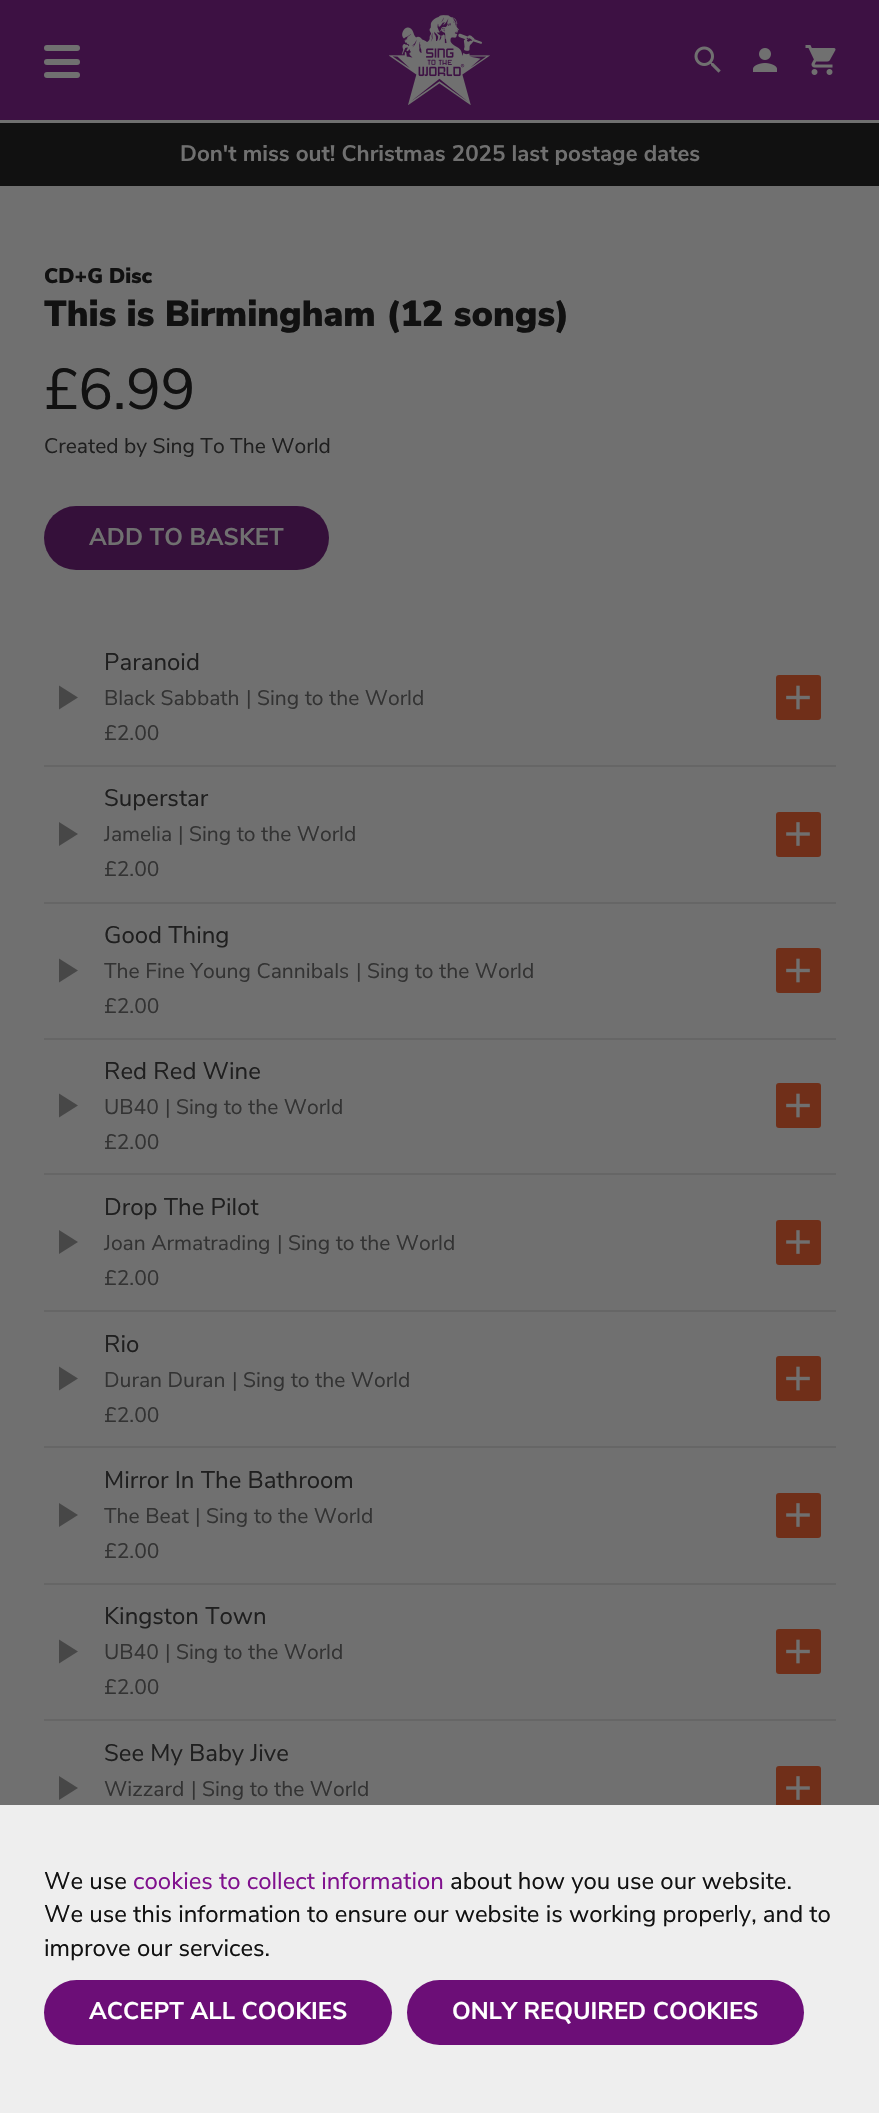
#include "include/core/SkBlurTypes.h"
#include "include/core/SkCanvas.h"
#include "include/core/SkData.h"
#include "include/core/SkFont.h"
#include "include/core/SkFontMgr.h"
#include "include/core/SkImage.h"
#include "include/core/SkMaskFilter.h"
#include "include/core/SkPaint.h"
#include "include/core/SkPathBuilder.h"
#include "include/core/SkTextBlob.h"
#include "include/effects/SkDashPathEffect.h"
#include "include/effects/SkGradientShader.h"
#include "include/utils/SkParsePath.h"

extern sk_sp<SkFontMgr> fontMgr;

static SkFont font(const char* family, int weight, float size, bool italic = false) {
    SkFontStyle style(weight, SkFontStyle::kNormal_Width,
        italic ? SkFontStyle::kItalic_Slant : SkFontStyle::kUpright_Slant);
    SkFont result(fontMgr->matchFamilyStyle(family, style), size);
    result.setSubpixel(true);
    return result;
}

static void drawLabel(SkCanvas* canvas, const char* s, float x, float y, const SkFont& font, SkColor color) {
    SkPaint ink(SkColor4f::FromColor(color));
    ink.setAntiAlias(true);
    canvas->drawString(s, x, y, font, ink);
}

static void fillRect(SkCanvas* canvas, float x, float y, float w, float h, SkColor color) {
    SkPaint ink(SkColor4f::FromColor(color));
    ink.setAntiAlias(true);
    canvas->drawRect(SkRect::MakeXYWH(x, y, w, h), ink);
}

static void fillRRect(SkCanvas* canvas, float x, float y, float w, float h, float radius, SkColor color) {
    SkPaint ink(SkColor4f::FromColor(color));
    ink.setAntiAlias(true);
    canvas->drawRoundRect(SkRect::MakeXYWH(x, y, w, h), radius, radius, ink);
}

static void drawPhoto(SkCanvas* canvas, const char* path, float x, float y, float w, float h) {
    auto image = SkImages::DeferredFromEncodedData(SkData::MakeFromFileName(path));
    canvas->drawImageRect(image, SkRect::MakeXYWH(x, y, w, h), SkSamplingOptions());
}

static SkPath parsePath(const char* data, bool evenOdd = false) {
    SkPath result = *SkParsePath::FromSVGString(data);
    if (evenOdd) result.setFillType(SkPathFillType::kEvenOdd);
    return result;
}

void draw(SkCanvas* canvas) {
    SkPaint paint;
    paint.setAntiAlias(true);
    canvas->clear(0xFF707070);
    fillRect(canvas, 0, 0, 879, 120, 0xFF3D1143);
    fillRRect(canvas, 44, 45, 36, 6, 3, 0xFF707070);
    fillRRect(canvas, 44, 59, 36, 6, 3, 0xFF707070);
    fillRRect(canvas, 44, 72, 36, 6, 3, 0xFF707070);
    drawPhoto(canvas, "assets/img1.png", 389, 15, 101, 90);
    drawPhoto(canvas, "assets/img2.png", 694, 46, 27, 27);
    drawPhoto(canvas, "assets/img3.png", 753, 48, 24, 24);
    drawPhoto(canvas, "assets/img4.png", 805, 45, 31, 30);
    fillRect(canvas, 0, 123, 879, 63, 0xFF111111);
    SkFont font1 = font("Nunito Sans", 700, 22.4f);
    drawLabel(canvas, "Don't miss out! Christmas 2025 last postage dates", 180, 161, font1, 0xFF707070);
    SkFont font2 = font("Nunito Sans", 900, 21.1f);
    drawLabel(canvas, "CD+G Disc", 44, 283, font2, 0xFF111111);
    SkFont font3 = font("Nunito Sans", 900, 36);
    drawLabel(canvas, "This is Birmingham (12 songs)", 44, 326, font3, 0xFF111111);
    SkFont font4 = font("Nunito Sans", 400, 57.5f);
    drawLabel(canvas, "£6.99", 44, 409, font4, 0xFF111111);
    SkFont font5 = font("Nunito Sans", 400, 21.1f);
    drawLabel(canvas, "Created by Sing To The World", 44, 453, font5, 0xFF1F1F1F);
    fillRRect(canvas, 44, 506, 285, 64, 32, 0xFF35103A);
    SkFont font6 = font("Nunito Sans", 700, 24);
    drawLabel(canvas, "ADD TO BASKET", 89, 545, font6, 0xFF707070);
    paint.setColor(0xFF474747);
    canvas->drawPath(parsePath("M59 685.5V709.5L78 697.5Z"), paint);
    SkFont font7 = font("Nunito Sans", 400, 24);
    drawLabel(canvas, "Paranoid", 104, 670, font7, 0xFF1F1F1F);
    drawLabel(canvas, "Black Sabbath", 104, 705, font5, 0xFF333333);
    drawLabel(canvas, "| Sing to the World", 246, 705, font5, 0xFF333333);
    drawLabel(canvas, "£2.00", 104, 740, font5, 0xFF333333);
    fillRRect(canvas, 776, 675, 45, 45, 3, 0xFF702F19);
    drawPhoto(canvas, "assets/img5.png", 786, 685, 24, 25);
    fillRect(canvas, 44, 765, 792, 2, 0xFF666666);
    canvas->drawPath(parsePath("M59 822V846L78 834Z"), paint);
    drawLabel(canvas, "Superstar", 104, 806, font7, 0xFF1F1F1F);
    drawLabel(canvas, "Jamelia", 104, 841, font5, 0xFF333333);
    drawLabel(canvas, "| Sing to the World", 178, 841, font5, 0xFF333333);
    drawLabel(canvas, "£2.00", 104, 876, font5, 0xFF333333);
    fillRRect(canvas, 776, 812, 45, 45, 3, 0xFF702F19);
    drawPhoto(canvas, "assets/img6.png", 786, 822, 24, 24);
    fillRect(canvas, 44, 902, 792, 2, 0xFF666666);
    canvas->drawPath(parsePath("M59 958.5V982.5L78 970.5Z"), paint);
    drawLabel(canvas, "Good Thing", 104, 943, font7, 0xFF1F1F1F);
    drawLabel(canvas, "The Fine Young Cannibals", 104, 978, font5, 0xFF333333);
    drawLabel(canvas, "| Sing to the World", 356, 978, font5, 0xFF333333);
    drawLabel(canvas, "£2.00", 104, 1013, font5, 0xFF333333);
    fillRRect(canvas, 776, 948, 45, 45, 3, 0xFF702F19);
    drawPhoto(canvas, "assets/img5.png", 786, 958, 24, 25);
    fillRect(canvas, 44, 1038, 792, 2, 0xFF666666);
    canvas->drawPath(parsePath("M59 1093.5V1117.5L78 1105.5Z"), paint);
    drawLabel(canvas, "Red Red Wine", 104, 1079, font7, 0xFF1F1F1F);
    drawLabel(canvas, "UB40", 104, 1114, font5, 0xFF333333);
    drawLabel(canvas, "| Sing to the World", 165, 1114, font5, 0xFF333333);
    drawLabel(canvas, "£2.00", 104, 1149, font5, 0xFF333333);
    fillRRect(canvas, 776, 1083, 45, 45, 3, 0xFF702F19);
    drawPhoto(canvas, "assets/img5.png", 786, 1093, 24, 25);
    fillRect(canvas, 44, 1173, 792, 2, 0xFF666666);
    canvas->drawPath(parsePath("M59 1230V1254L78 1242Z"), paint);
    drawLabel(canvas, "Drop The Pilot", 104, 1215, font7, 0xFF1F1F1F);
    drawLabel(canvas, "Joan Armatrading", 104, 1250, font5, 0xFF333333);
    drawLabel(canvas, "| Sing to the World", 277, 1250, font5, 0xFF333333);
    drawLabel(canvas, "£2.00", 104, 1285, font5, 0xFF333333);
    fillRRect(canvas, 776, 1220, 45, 45, 3, 0xFF702F19);
    drawPhoto(canvas, "assets/img6.png", 786, 1230, 24, 24);
    fillRect(canvas, 44, 1310, 792, 2, 0xFF666666);
    canvas->drawPath(parsePath("M59 1366.5V1390.5L78 1378.5Z"), paint);
    drawLabel(canvas, "Rio", 104, 1352, font7, 0xFF1F1F1F);
    drawLabel(canvas, "Duran Duran", 104, 1387, font5, 0xFF333333);
    drawLabel(canvas, "| Sing to the World", 232, 1387, font5, 0xFF333333);
    drawLabel(canvas, "£2.00", 104, 1422, font5, 0xFF333333);
    fillRRect(canvas, 776, 1356, 45, 45, 3, 0xFF702F19);
    drawPhoto(canvas, "assets/img5.png", 786, 1366, 24, 25);
    fillRect(canvas, 44, 1446, 792, 2, 0xFF666666);
    canvas->drawPath(parsePath("M59 1503V1527L78 1515Z"), paint);
    drawLabel(canvas, "Mirror In The Bathroom", 104, 1488, font7, 0xFF1F1F1F);
    drawLabel(canvas, "The Beat", 104, 1523, font5, 0xFF333333);
    drawLabel(canvas, "| Sing to the World", 195, 1523, font5, 0xFF333333);
    drawLabel(canvas, "£2.00", 104, 1558, font5, 0xFF333333);
    fillRRect(canvas, 776, 1493, 45, 45, 3, 0xFF702F19);
    drawPhoto(canvas, "assets/img6.png", 786, 1503, 24, 24);
    fillRect(canvas, 44, 1583, 792, 2, 0xFF666666);
    canvas->drawPath(parsePath("M59 1639.5V1663.5L78 1651.5Z"), paint);
    drawLabel(canvas, "Kingston Town", 104, 1624, font7, 0xFF1F1F1F);
    drawLabel(canvas, "UB40", 104, 1659, font5, 0xFF333333);
    drawLabel(canvas, "| Sing to the World", 165, 1659, font5, 0xFF333333);
    drawLabel(canvas, "£2.00", 104, 1694, font5, 0xFF333333);
    fillRRect(canvas, 776, 1629, 45, 45, 3, 0xFF702F19);
    drawPhoto(canvas, "assets/img5.png", 786, 1639, 24, 25);
    fillRect(canvas, 44, 1719, 792, 2, 0xFF666666);
    canvas->drawPath(parsePath("M59 1776V1800L78 1788Z"), paint);
    drawLabel(canvas, "See My Baby Jive", 104, 1761, font7, 0xFF1F1F1F);
    drawLabel(canvas, "Wizzard", 104, 1796, font5, 0xFF333333);
    drawLabel(canvas, "| Sing to the World", 191, 1796, font5, 0xFF333333);
    fillRRect(canvas, 776, 1766, 45, 45, 3, 0xFF702F19);
    drawPhoto(canvas, "assets/img6.png", 786, 1776, 24, 24);
    fillRect(canvas, 0, 1805, 879, 308, 0xFFEEEEEE);
    drawLabel(canvas, "We use", 44, 1889, font7, 0xFF111111);
    drawLabel(canvas, "cookies to collect information", 133, 1889, font7, 0xFF80118E);
    drawLabel(canvas, "about how you use our website.", 450, 1889, font7, 0xFF111111);
    drawLabel(canvas, "We use this information to ensure our website is working properly, and to", 44, 1922, font7, 0xFF111111);
    drawLabel(canvas, "improve our services.", 44, 1956, font7, 0xFF111111);
    fillRRect(canvas, 44, 1980, 348, 65, 32.5f, 0xFF6C0E77);
    drawLabel(canvas, "ACCEPT ALL COOKIES", 89, 2019, font6, 0xFFFFFFFF);
    fillRRect(canvas, 407, 1980, 397, 65, 32.5f, 0xFF6C0E77);
    drawLabel(canvas, "ONLY REQUIRED COOKIES", 452, 2019, font6, 0xFFFFFFFF);
}
